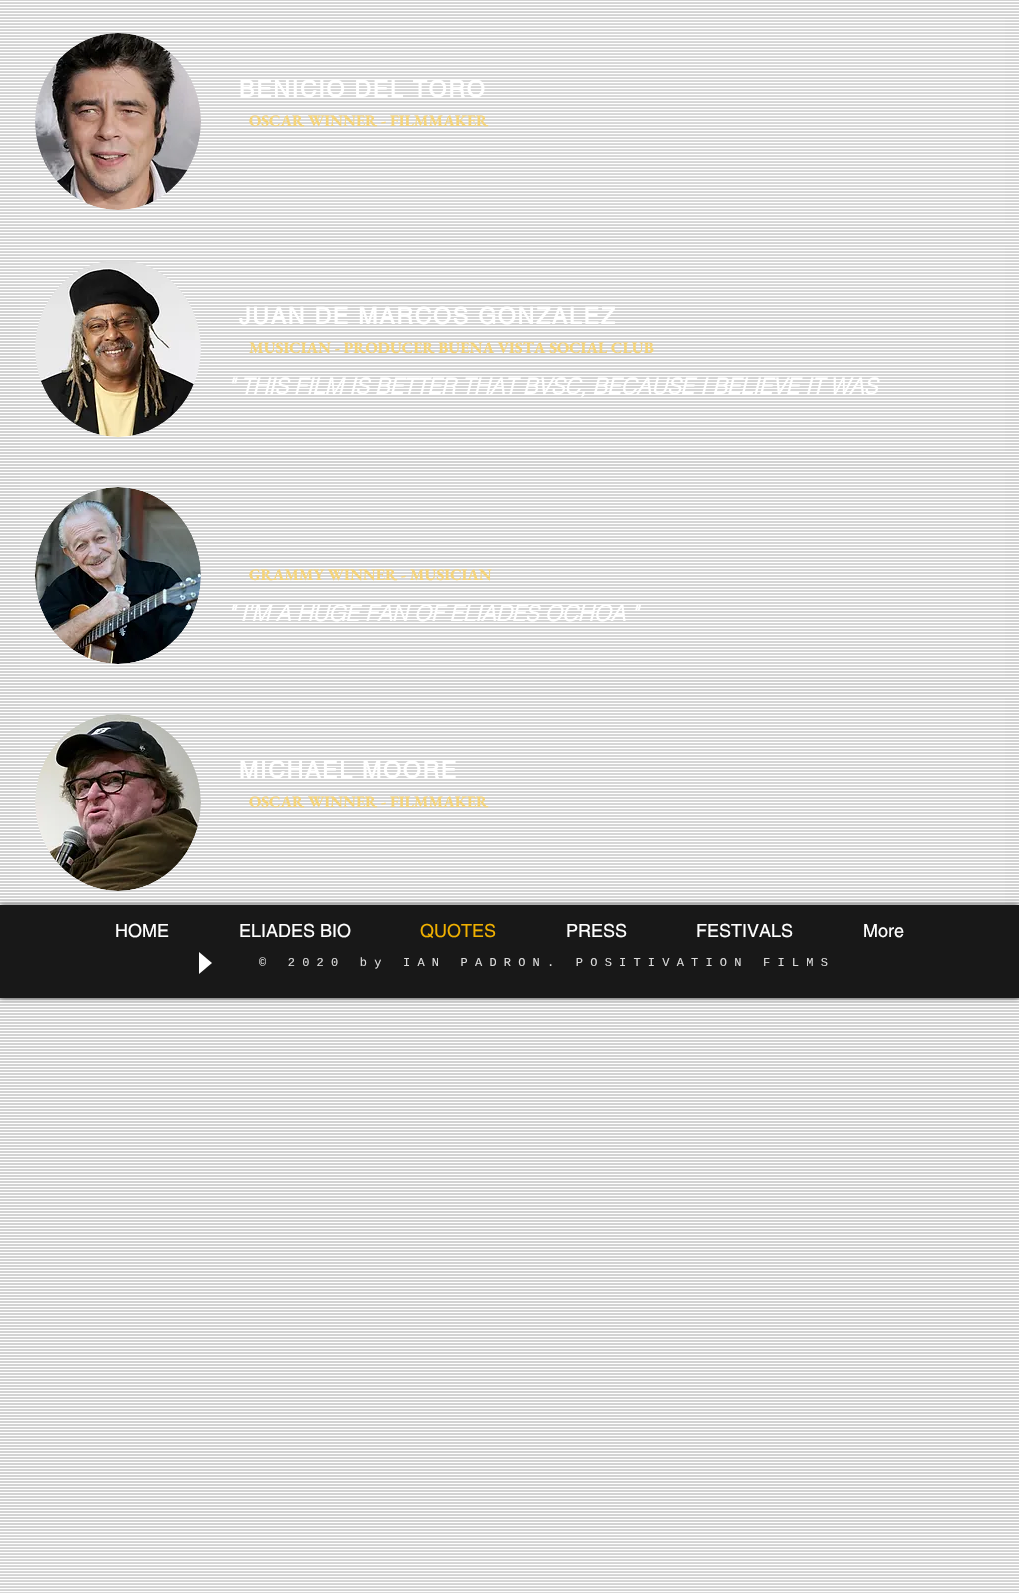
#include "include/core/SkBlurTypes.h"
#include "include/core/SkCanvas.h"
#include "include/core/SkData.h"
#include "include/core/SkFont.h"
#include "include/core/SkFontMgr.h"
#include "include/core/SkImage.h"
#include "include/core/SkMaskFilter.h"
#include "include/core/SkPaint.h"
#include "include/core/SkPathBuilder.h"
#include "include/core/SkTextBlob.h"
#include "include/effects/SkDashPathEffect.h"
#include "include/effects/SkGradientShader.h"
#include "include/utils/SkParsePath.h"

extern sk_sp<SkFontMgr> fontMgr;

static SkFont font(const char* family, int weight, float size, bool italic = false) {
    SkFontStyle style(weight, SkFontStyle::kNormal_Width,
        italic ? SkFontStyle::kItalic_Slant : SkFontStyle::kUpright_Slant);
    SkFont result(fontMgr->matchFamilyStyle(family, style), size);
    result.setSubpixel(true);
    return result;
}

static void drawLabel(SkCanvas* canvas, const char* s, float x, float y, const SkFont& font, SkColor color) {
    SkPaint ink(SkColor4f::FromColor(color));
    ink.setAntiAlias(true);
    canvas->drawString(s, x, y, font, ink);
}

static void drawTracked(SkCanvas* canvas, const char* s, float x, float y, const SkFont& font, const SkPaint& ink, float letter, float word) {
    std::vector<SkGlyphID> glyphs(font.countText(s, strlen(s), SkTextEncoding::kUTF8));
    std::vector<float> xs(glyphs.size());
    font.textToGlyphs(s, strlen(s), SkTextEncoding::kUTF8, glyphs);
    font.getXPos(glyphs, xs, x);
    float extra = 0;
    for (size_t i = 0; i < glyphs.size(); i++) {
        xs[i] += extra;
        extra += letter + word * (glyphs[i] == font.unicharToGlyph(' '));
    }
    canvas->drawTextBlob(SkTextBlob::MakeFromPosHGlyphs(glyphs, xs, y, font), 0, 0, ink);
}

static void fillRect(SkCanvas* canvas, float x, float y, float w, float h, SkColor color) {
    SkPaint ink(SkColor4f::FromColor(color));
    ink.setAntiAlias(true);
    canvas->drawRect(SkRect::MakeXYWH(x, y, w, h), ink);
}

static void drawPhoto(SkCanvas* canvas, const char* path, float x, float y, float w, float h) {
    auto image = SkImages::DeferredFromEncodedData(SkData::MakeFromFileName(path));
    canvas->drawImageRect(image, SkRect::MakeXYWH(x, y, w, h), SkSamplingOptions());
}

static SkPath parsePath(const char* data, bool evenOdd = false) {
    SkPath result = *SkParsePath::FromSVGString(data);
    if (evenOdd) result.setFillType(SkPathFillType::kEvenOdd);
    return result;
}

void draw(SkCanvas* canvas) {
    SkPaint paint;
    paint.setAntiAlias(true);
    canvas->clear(0xFFFFFFFF);
    drawPhoto(canvas, "assets/img1.png", 0, 0, 1019, 1593);
    fillRect(canvas, 20, 18, 985, 205, 0x12F9F9F9);
    drawPhoto(canvas, "assets/img2.png", 35, 33, 166, 177);
    SkFont font1 = font("helvetica", 700, 23);
    paint.setColor(0xFFFFFFFF);
    drawTracked(canvas, "BENICIO DEL TORO", 239, 97, font1, paint, 1.8f, 0);
    SkFont font2 = font("EB Garamond", 700, 16);
    drawLabel(canvas, "OSCAR WINNER - FILMMAKER", 249, 126, font2, 0xFFF5D47A);
    fillRect(canvas, 20, 246, 985, 205, 0x12F9F9F9);
    drawPhoto(canvas, "assets/img3.png", 35, 261, 166, 176);
    drawTracked(canvas, "JUAN DE MARCOS GONZALEZ", 239, 324, font1, paint, 1.8f, 0);
    drawLabel(canvas, "MUSICIAN - PRODUCER BUENA VISTA SOCIAL CLUB", 249, 353, font2, 0xFFF5D47A);
    SkFont font3 = font("helvetica", 700, 22, true);
    drawLabel(canvas, "\" THIS FILM IS BETTER THAT BVSC, BECAUSE I BELIEVE IT WAS", 228, 394, font3, 0xFFFFFFFF);
    fillRect(canvas, 20, 471, 985, 207, 0x12F9F9F9);
    drawPhoto(canvas, "assets/img4.png", 35, 487, 166, 177);
    drawLabel(canvas, "GRAMMY WINNER - MUSICIAN", 249, 580, font2, 0xFFF5D47A);
    drawLabel(canvas, "\" I'M A HUGE FAN OF ELIADES OCHOA \"", 228, 621, font3, 0xFFFFFFFF);
    fillRect(canvas, 20, 698, 985, 206, 0x12F9F9F9);
    drawPhoto(canvas, "assets/img5.png", 35, 714, 166, 177);
    drawTracked(canvas, "MICHAEL MOORE", 239, 778, font1, paint, 1.8f, 0);
    drawLabel(canvas, "OSCAR WINNER - FILMMAKER", 249, 807, font2, 0xFFF5D47A);
    paint.setColor(0xB3000000);
    paint.setMaskFilter(SkMaskFilter::MakeBlur(kNormal_SkBlurStyle, 2.5f));
    canvas->drawRect(SkRect::MakeXYWH(0, 905, 1019, 93), paint);
    paint.setMaskFilter(nullptr);
    fillRect(canvas, 0, 905, 1019, 93, 0xFF181818);
    SkFont font4 = font("helvetica", 400, 18);
    drawLabel(canvas, "HOME", 115, 937, font4, 0xFFFFFFFF);
    drawLabel(canvas, "ELIADES BIO", 239, 937, font4, 0xFFFFFFFF);
    drawLabel(canvas, "QUOTES", 420, 937, font4, 0xFFF0B000);
    drawLabel(canvas, "PRESS", 566, 937, font4, 0xFFFFFFFF);
    drawLabel(canvas, "FESTIVALS", 696, 937, font4, 0xFFFFFFFF);
    drawLabel(canvas, "More", 863, 937, font4, 0xFFFFFFFF);
    paint.setColor(0xFFFFFFFF);
    canvas->drawPath(parsePath("M199 974V952L212 963Z"), paint);
    SkFont font5 = font("Liberation Mono", 400, 12);
    paint.setColor(0xFFDBDBDB);
    drawTracked(canvas, "© 2020 by IAN PADRON. POSITIVATION FILMS", 259, 966, font5, paint, 7.2f, 0);
}
